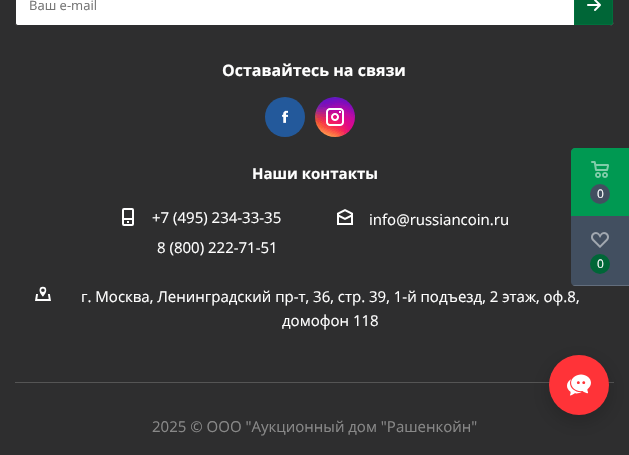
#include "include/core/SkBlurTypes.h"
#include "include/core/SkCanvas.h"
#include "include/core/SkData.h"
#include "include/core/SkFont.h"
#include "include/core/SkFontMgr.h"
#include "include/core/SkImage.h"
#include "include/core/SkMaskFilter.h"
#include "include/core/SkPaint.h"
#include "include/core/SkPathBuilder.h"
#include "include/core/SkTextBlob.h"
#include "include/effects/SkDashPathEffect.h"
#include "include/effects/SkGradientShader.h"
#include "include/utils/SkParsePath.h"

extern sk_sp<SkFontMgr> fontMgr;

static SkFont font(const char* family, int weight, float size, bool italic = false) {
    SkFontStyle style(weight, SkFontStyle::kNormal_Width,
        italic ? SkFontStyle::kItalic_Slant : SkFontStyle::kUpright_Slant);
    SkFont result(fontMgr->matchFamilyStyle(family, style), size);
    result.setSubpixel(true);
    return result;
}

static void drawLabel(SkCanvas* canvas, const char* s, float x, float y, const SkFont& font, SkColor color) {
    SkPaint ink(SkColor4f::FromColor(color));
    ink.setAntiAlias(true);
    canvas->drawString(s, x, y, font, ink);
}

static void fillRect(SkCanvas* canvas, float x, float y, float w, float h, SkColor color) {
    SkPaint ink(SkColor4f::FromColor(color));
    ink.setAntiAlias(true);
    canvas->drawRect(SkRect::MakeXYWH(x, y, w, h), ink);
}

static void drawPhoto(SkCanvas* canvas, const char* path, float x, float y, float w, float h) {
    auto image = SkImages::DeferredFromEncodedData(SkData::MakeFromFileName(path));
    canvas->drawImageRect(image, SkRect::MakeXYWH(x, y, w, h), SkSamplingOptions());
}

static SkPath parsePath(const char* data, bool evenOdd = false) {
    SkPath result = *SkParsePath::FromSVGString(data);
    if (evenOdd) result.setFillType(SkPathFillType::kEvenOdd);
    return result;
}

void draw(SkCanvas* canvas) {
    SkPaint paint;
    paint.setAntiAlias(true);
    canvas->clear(0xFF2E2E2F);
    paint.setColor(0xFFFFFFFF);
    canvas->drawPath(parsePath("M18-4.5H610C612-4.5 613.5-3 613.5-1V22C613.5 24 612 25.5 610 25.5H18C16.5 25.5 15.5 24.5 15.5 23V-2C15.5-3.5 16.5-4.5 18-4.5Z"), paint);
    paint.setStroke(true);
    paint.setStrokeWidth(1);
    paint.setColor(0xFF2E2E2F);
    canvas->drawPath(parsePath("M18-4.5H610C612-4.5 613.5-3 613.5-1V22C613.5 24 612 25.5 610 25.5H18C16.5 25.5 15.5 24.5 15.5 23V-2C15.5-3.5 16.5-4.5 18-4.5Z"), paint);
    SkFont font1 = font("Open Sans", 400, 13);
    drawLabel(canvas, "Ваш e-mail", 29, 10, font1, 0xFF757575);
    paint.setStroke(false);
    paint.setColor(0xFF006637);
    canvas->drawPath(parsePath("M574-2H611C612-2 613-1 613 0V23C613 24 612 25 611 25H574Z"), paint);
    drawPhoto(canvas, "assets/img1.png", 587, 0, 14, 11);
    paint.setStroke(true);
    paint.setColor(0xFF00703C);
    canvas->drawPath(parsePath("M574.5-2.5H611C612-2.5 612.5-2 612.5-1V23C612.5 24 612 24.5 611 24.5H574.5Z"), paint);
    SkFont font2 = font("Open Sans", 700, 16);
    drawLabel(canvas, "Оставайтесь на связи", 222, 76, font2, 0xFFFFFFFF);
    drawPhoto(canvas, "assets/img2.png", 265, 97, 40, 40);
    drawPhoto(canvas, "assets/img3.png", 315, 97, 40, 40);
    SkFont font3 = font("Open Sans", 700, 15);
    drawLabel(canvas, "Наши контакты", 252, 179, font3, 0xFFFFFFFF);
    drawPhoto(canvas, "assets/img4.png", 122, 208, 12, 18);
    SkFont font4 = font("Open Sans", 400, 15);
    drawLabel(canvas, "+7 (495) 234-33-35", 152, 223, font4, 0xFFFFFFFF);
    drawLabel(canvas, "8 (800) 222-71-51", 157, 253, font4, 0xFFFFFFFF);
    drawPhoto(canvas, "assets/img5.png", 337, 209, 16, 16);
    drawLabel(canvas, "info@russiancoin.ru", 369, 225, font4, 0xFFFFFFFF);
    drawPhoto(canvas, "assets/img6.png", 35, 286, 16, 15);
    drawLabel(canvas, "г. Москва, Ленинградский пр-т, 36, стр. 39, 1-й подъезд, 2 этаж, оф.8,", 81, 302, font4, 0xFFFFFFFF);
    drawLabel(canvas, "домофон 118", 282, 326, font4, 0xFFFFFFFF);
    fillRect(canvas, 15, 382, 599, 1, 0xFF555555);
    drawLabel(canvas, "2025 © ООО \"Аукционный дом \"Рашенкойн\"", 152, 432, font4, 0xFF888888);
    paint.setStroke(false);
    paint.setColor(0xFF424F60);
    canvas->drawPath(parsePath("M575 148H629V286H575C573 286 571 284 571 282V152C571 150 573 148 575 148Z"), paint);
    paint.setColor(0xFF009952);
    canvas->drawPath(parsePath("M575 148H629V216H571V152C571 150 573 148 575 148Z"), paint);
    drawPhoto(canvas, "assets/img7.png", 591, 161, 18, 17);
    paint.setColor(0xFF424F60);
    canvas->drawCircle(600, 194, 10, paint);
    SkFont font5 = font("Open Sans", 400, 12);
    drawLabel(canvas, "0", 597, 198, font5, 0xFFFFFFFF);
    drawPhoto(canvas, "assets/img8.png", 591, 232, 18, 16);
    paint.setColor(0xFF006637);
    canvas->drawCircle(600, 264, 10, paint);
    drawLabel(canvas, "0", 597, 268, font5, 0xFFFFFFFF);
    canvas->save();
    canvas->clipPath(parsePath("M575 148H629V286H575C573 286 571 284 571 282V152C571 150 573 148 575 148Z"), true);
    fillRect(canvas, 571, 285, 58, 1, 0x33E7EDF2);
    canvas->restore();
    paint.setColor(0x33000000);
    paint.setMaskFilter(SkMaskFilter::MakeBlur(kNormal_SkBlurStyle, 10));
    canvas->drawRoundRect(SkRect::MakeXYWH(549, 361, 60, 60), 30, 30, paint);
    paint.setMaskFilter(nullptr);
    paint.setColor(0xFFFF3338);
    canvas->drawCircle(579, 385, 30, paint);
    drawPhoto(canvas, "assets/img9.png", 567, 374, 24, 22);
}
